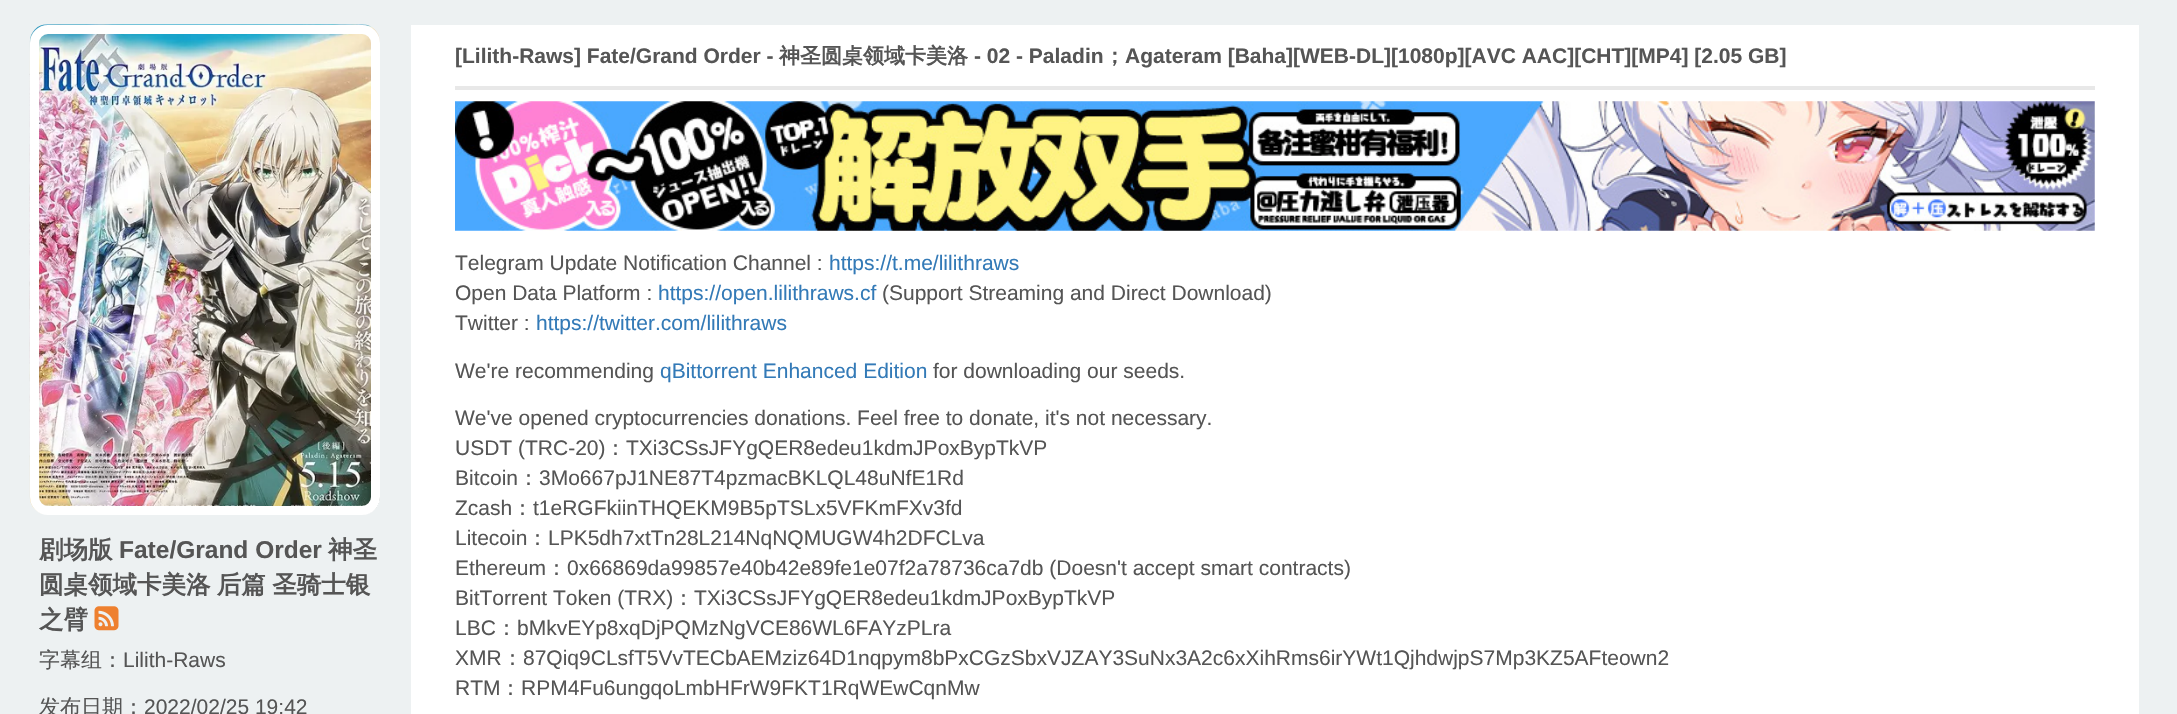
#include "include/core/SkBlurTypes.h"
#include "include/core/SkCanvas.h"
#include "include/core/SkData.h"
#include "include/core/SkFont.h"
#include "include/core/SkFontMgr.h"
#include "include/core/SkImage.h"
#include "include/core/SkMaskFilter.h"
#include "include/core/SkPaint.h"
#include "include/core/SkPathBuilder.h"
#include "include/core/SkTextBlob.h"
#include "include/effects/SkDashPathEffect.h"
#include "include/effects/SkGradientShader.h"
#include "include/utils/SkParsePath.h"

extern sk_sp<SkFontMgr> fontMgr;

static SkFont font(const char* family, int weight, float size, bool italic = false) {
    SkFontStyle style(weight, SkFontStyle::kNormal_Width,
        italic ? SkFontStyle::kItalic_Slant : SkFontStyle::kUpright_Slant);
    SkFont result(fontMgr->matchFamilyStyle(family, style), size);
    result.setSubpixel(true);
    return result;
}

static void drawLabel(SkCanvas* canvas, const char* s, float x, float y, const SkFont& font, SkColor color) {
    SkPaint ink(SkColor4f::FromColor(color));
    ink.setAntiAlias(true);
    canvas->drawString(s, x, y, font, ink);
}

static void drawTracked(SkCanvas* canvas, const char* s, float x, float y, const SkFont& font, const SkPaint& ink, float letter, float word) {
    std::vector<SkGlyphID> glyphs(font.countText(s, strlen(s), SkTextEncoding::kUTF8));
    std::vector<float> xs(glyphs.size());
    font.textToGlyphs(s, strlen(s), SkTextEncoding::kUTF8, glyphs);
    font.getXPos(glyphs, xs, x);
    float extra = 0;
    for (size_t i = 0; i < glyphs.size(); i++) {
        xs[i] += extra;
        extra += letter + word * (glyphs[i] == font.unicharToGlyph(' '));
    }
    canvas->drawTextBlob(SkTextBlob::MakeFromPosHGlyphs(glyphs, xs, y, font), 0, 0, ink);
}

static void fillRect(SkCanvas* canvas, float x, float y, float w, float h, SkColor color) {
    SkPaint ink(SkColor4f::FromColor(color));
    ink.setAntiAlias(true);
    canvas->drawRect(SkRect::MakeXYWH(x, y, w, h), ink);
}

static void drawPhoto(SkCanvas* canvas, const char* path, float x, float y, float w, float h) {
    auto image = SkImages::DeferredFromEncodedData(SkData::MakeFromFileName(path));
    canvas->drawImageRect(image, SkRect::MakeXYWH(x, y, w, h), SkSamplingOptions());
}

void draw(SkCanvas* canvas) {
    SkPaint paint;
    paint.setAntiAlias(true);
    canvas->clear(0xFFEDF1F2);
    drawPhoto(canvas, "assets/img1.png", 29, 24, 351, 491);
    paint.setStroke(true);
    paint.setStrokeWidth(9);
    paint.setColor(0xFFFFFFFF);
    canvas->drawRoundRect(SkRect::MakeXYWH(34.5f, 29.5f, 341, 481), 13.5f, 13.5f, paint);
    SkFont font1 = font("WenQuanYi Zen Hei", 700, 24.5f);
    drawLabel(canvas, "剧场版", 39, 558, font1, 0xFF555555);
    SkFont font2 = font("Liberation Sans", 700, 24.5f);
    drawLabel(canvas, "Fate/Grand Order", 119, 558, font2, 0xFF555555);
    drawLabel(canvas, "神圣", 328, 558, font1, 0xFF555555);
    paint.setStroke(false);
    paint.setColor(0xFF555555);
    drawTracked(canvas, "圆桌领域卡美洛 后篇 圣骑士银", 39, 593, font1, paint, 0, -1);
    drawLabel(canvas, "之臂", 39, 628, font1, 0xFF555555);
    drawPhoto(canvas, "assets/img2.png", 94, 606, 25, 25);
    SkFont font3 = font("WenQuanYi Zen Hei", 500, 21);
    drawLabel(canvas, "字幕组：", 39, 667, font3, 0xFF555555);
    SkFont font4 = font("Liberation Sans", 400, 21);
    drawLabel(canvas, "Lilith-Raws", 123, 667, font4, 0xFF555555);
    drawLabel(canvas, "发布日期：", 39, 714, font3, 0xFF555555);
    drawLabel(canvas, "2022/02/25 19:42", 144, 714, font4, 0xFF555555);
    fillRect(canvas, 411, 25, 1728, 689, 0xFFFFFFFF);
    fillRect(canvas, 455, 86, 1640, 4, 0xFFE8E8E8);
    SkFont font5 = font("Liberation Sans", 700, 21);
    drawLabel(canvas, "[Lilith-Raws] Fate/Grand Order -", 455, 63, font5, 0xFF555555);
    SkFont font6 = font("WenQuanYi Zen Hei", 700, 21);
    drawLabel(canvas, "神圣圆桌领域卡美洛", 779, 63, font6, 0xFF555555);
    drawLabel(canvas, "- 02 - Paladin", 974, 63, font5, 0xFF555555);
    drawLabel(canvas, "；", 1104, 63, font6, 0xFF555555);
    drawLabel(canvas, "Agateram [Baha][WEB-DL][1080p][AVC AAC][CHT][MP4] [2.05 GB]", 1125, 63, font5, 0xFF555555);
    drawPhoto(canvas, "assets/img3.png", 455, 101, 1640, 130);
    drawLabel(canvas, "Telegram Update Notification Channel :", 455, 270, font4, 0xFF555555);
    drawLabel(canvas, "https://t.me/lilithraws", 829, 270, font4, 0xFF337AB7);
    drawLabel(canvas, "Open Data Platform :", 455, 300, font4, 0xFF555555);
    drawLabel(canvas, "https://open.lilithraws.cf", 658, 300, font4, 0xFF337AB7);
    drawLabel(canvas, "(Support Streaming and Direct Download)", 882, 300, font4, 0xFF555555);
    drawLabel(canvas, "Twitter :", 455, 330, font4, 0xFF555555);
    drawLabel(canvas, "https://twitter.com/lilithraws", 536, 330, font4, 0xFF337AB7);
    drawLabel(canvas, "We're recommending", 455, 378, font4, 0xFF555555);
    drawLabel(canvas, "qBittorrent Enhanced Edition", 660, 378, font4, 0xFF337AB7);
    drawLabel(canvas, "for downloading our seeds.", 933, 378, font4, 0xFF555555);
    drawLabel(canvas, "We've opened cryptocurrencies donations. Feel free to donate, it's not necessary.", 455, 425, font4, 0xFF555555);
    drawLabel(canvas, "USDT (TRC-20)", 455, 455, font4, 0xFF555555);
    drawLabel(canvas, "：", 605, 455, font3, 0xFF555555);
    drawLabel(canvas, "TXi3CSsJFYgQER8edeu1kdmJPoxBypTkVP", 626, 455, font4, 0xFF555555);
    drawLabel(canvas, "Bitcoin", 455, 485, font4, 0xFF555555);
    drawLabel(canvas, "：", 518, 485, font3, 0xFF555555);
    drawLabel(canvas, "3Mo667pJ1NE87T4pzmacBKLQL48uNfE1Rd", 539, 485, font4, 0xFF555555);
    drawLabel(canvas, "Zcash", 455, 515, font4, 0xFF555555);
    drawLabel(canvas, "：", 512, 515, font3, 0xFF555555);
    drawLabel(canvas, "t1eRGFkiinTHQEKM9B5pTSLx5VFKmFXv3fd", 533, 515, font4, 0xFF555555);
    drawLabel(canvas, "Litecoin", 455, 545, font4, 0xFF555555);
    drawLabel(canvas, "：", 527, 545, font3, 0xFF555555);
    drawLabel(canvas, "LPK5dh7xtTn28L214NqNQMUGW4h2DFCLva", 548, 545, font4, 0xFF555555);
    drawLabel(canvas, "Ethereum", 455, 575, font4, 0xFF555555);
    drawLabel(canvas, "：", 546, 575, font3, 0xFF555555);
    drawLabel(canvas, "0x66869da99857e40b42e89fe1e07f2a78736ca7db (Doesn't accept smart contracts)", 567, 575, font4, 0xFF555555);
    drawLabel(canvas, "BitTorrent Token (TRX)", 455, 605, font4, 0xFF555555);
    drawLabel(canvas, "：", 673, 605, font3, 0xFF555555);
    drawLabel(canvas, "TXi3CSsJFYgQER8edeu1kdmJPoxBypTkVP", 694, 605, font4, 0xFF555555);
    drawLabel(canvas, "LBC", 455, 635, font4, 0xFF555555);
    drawLabel(canvas, "：", 496, 635, font3, 0xFF555555);
    drawLabel(canvas, "bMkvEYp8xqDjPQMzNgVCE86WL6FAYzPLra", 517, 635, font4, 0xFF555555);
    drawLabel(canvas, "XMR", 455, 665, font4, 0xFF555555);
    drawLabel(canvas, "：", 502, 665, font3, 0xFF555555);
    drawLabel(canvas, "87Qiq9CLsfT5VvTECbAEMziz64D1nqpym8bPxCGzSbxVJZAY3SuNx3A2c6xXihRms6irYWt1QjhdwjpS7Mp3KZ5AFteown2", 523, 665, font4, 0xFF555555);
    drawLabel(canvas, "RTM", 455, 695, font4, 0xFF555555);
    drawLabel(canvas, "：", 500, 695, font3, 0xFF555555);
    drawLabel(canvas, "RPM4Fu6ungqoLmbHFrW9FKT1RqWEwCqnMw", 521, 695, font4, 0xFF555555);
}
